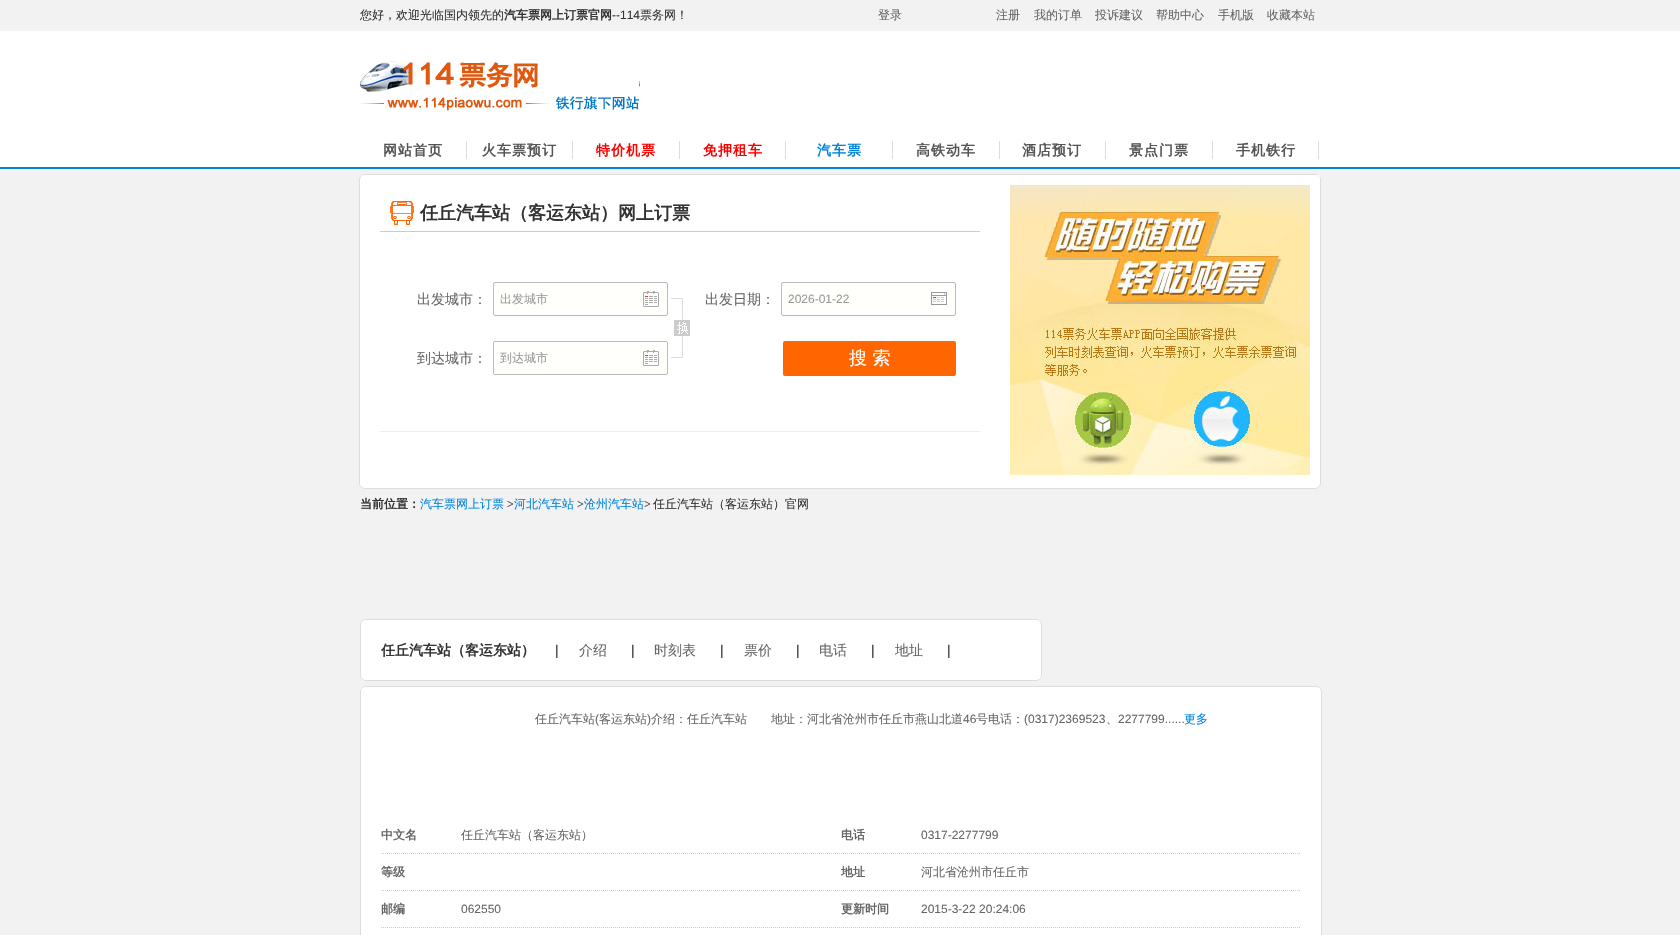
#include "include/core/SkBlurTypes.h"
#include "include/core/SkCanvas.h"
#include "include/core/SkData.h"
#include "include/core/SkFont.h"
#include "include/core/SkFontMgr.h"
#include "include/core/SkImage.h"
#include "include/core/SkMaskFilter.h"
#include "include/core/SkPaint.h"
#include "include/core/SkPathBuilder.h"
#include "include/core/SkTextBlob.h"
#include "include/effects/SkDashPathEffect.h"
#include "include/effects/SkGradientShader.h"
#include "include/utils/SkParsePath.h"

extern sk_sp<SkFontMgr> fontMgr;

static SkFont font(const char* family, int weight, float size, bool italic = false) {
    SkFontStyle style(weight, SkFontStyle::kNormal_Width,
        italic ? SkFontStyle::kItalic_Slant : SkFontStyle::kUpright_Slant);
    SkFont result(fontMgr->matchFamilyStyle(family, style), size);
    result.setSubpixel(true);
    return result;
}

static void drawLabel(SkCanvas* canvas, const char* s, float x, float y, const SkFont& font, SkColor color) {
    SkPaint ink(SkColor4f::FromColor(color));
    ink.setAntiAlias(true);
    canvas->drawString(s, x, y, font, ink);
}

static void drawTracked(SkCanvas* canvas, const char* s, float x, float y, const SkFont& font, const SkPaint& ink, float letter, float word) {
    std::vector<SkGlyphID> glyphs(font.countText(s, strlen(s), SkTextEncoding::kUTF8));
    std::vector<float> xs(glyphs.size());
    font.textToGlyphs(s, strlen(s), SkTextEncoding::kUTF8, glyphs);
    font.getXPos(glyphs, xs, x);
    float extra = 0;
    for (size_t i = 0; i < glyphs.size(); i++) {
        xs[i] += extra;
        extra += letter + word * (glyphs[i] == font.unicharToGlyph(' '));
    }
    canvas->drawTextBlob(SkTextBlob::MakeFromPosHGlyphs(glyphs, xs, y, font), 0, 0, ink);
}

static void fillRect(SkCanvas* canvas, float x, float y, float w, float h, SkColor color) {
    SkPaint ink(SkColor4f::FromColor(color));
    ink.setAntiAlias(true);
    canvas->drawRect(SkRect::MakeXYWH(x, y, w, h), ink);
}

static void fillRRect(SkCanvas* canvas, float x, float y, float w, float h, float radius, SkColor color) {
    SkPaint ink(SkColor4f::FromColor(color));
    ink.setAntiAlias(true);
    canvas->drawRoundRect(SkRect::MakeXYWH(x, y, w, h), radius, radius, ink);
}

static void drawPhoto(SkCanvas* canvas, const char* path, float x, float y, float w, float h) {
    auto image = SkImages::DeferredFromEncodedData(SkData::MakeFromFileName(path));
    canvas->drawImageRect(image, SkRect::MakeXYWH(x, y, w, h), SkSamplingOptions());
}

static SkPath parsePath(const char* data, bool evenOdd = false) {
    SkPath result = *SkParsePath::FromSVGString(data);
    if (evenOdd) result.setFillType(SkPathFillType::kEvenOdd);
    return result;
}

void draw(SkCanvas* canvas) {
    SkPaint paint;
    paint.setAntiAlias(true);
    canvas->clear(0xFFF2F2F2);
    SkFont font1 = font("WenQuanYi Zen Hei", 500, 12);
    drawLabel(canvas, "您好，欢迎光临国内领先的", 360, 19, font1, 0xFF333333);
    SkFont font2 = font("WenQuanYi Zen Hei", 700, 12);
    drawLabel(canvas, "汽车票网上订票官网", 504, 19, font2, 0xFF333333);
    SkFont font3 = font("Liberation Sans", 400, 12);
    drawLabel(canvas, "--114", 612, 19, font3, 0xFF333333);
    drawLabel(canvas, "票务网！", 640, 19, font1, 0xFF333333);
    drawLabel(canvas, "登录", 878, 19, font1, 0xFF666666);
    drawLabel(canvas, "注册", 996, 19, font1, 0xFF666666);
    drawLabel(canvas, "我的订单", 1034, 19, font1, 0xFF666666);
    drawLabel(canvas, "投诉建议", 1095, 19, font1, 0xFF666666);
    drawLabel(canvas, "帮助中心", 1156, 19, font1, 0xFF666666);
    drawLabel(canvas, "手机版", 1218, 19, font1, 0xFF666666);
    drawLabel(canvas, "收藏本站", 1267, 19, font1, 0xFF666666);
    fillRect(canvas, 0, 31, 1680, 136, 0xFFFFFFFF);
    drawPhoto(canvas, "assets/img1.png", 360, 59, 280, 52);
    fillRect(canvas, 466, 141, 1, 18, 0xFFDDDDDD);
    SkFont font4 = font("WenQuanYi Zen Hei", 700, 14);
    paint.setColor(0xFF555555);
    drawTracked(canvas, "网站首页", 383, 155, font4, paint, 1, 0);
    fillRect(canvas, 572, 141, 1, 18, 0xFFDDDDDD);
    drawTracked(canvas, "火车票预订", 482, 155, font4, paint, 1, 0);
    fillRect(canvas, 679, 141, 1, 18, 0xFFDDDDDD);
    paint.setColor(0xFFFF0000);
    drawTracked(canvas, "特价机票", 596, 155, font4, paint, 1, 0);
    fillRect(canvas, 785, 141, 1, 18, 0xFFDDDDDD);
    drawTracked(canvas, "免押租车", 703, 155, font4, paint, 1, 0);
    fillRect(canvas, 892, 141, 1, 18, 0xFFDDDDDD);
    paint.setColor(0xFF0083DE);
    drawTracked(canvas, "汽车票", 817, 155, font4, paint, 1, 0);
    fillRect(canvas, 999, 141, 1, 18, 0xFFDDDDDD);
    paint.setColor(0xFF555555);
    drawTracked(canvas, "高铁动车", 916, 155, font4, paint, 1, 0);
    fillRect(canvas, 1105, 141, 1, 18, 0xFFDDDDDD);
    drawTracked(canvas, "酒店预订", 1022, 155, font4, paint, 1, 0);
    fillRect(canvas, 1212, 141, 1, 18, 0xFFDDDDDD);
    drawTracked(canvas, "景点门票", 1129, 155, font4, paint, 1, 0);
    fillRect(canvas, 1318, 141, 1, 18, 0xFFDDDDDD);
    drawTracked(canvas, "手机铁行", 1236, 155, font4, paint, 1, 0);
    fillRect(canvas, 0, 167, 1680, 2, 0xFF0083DE);
    paint.setColor(0xFFFFFFFF);
    canvas->drawRoundRect(SkRect::MakeXYWH(359.5f, 174.5f, 961, 314), 5.5f, 5.5f, paint);
    paint.setStroke(true);
    paint.setStrokeWidth(1);
    paint.setColor(0xFFDDDDDD);
    canvas->drawRoundRect(SkRect::MakeXYWH(359.5f, 174.5f, 961, 314), 5.5f, 5.5f, paint);
    paint.setStroke(false);
    paint.setColor(0xFFFFFFFF);
    canvas->drawPath(parsePath("M1000 175H1314C1317.5 175 1320 177.5 1320 181V479C1320 482.5 1317.5 485 1314 485H1000Z"), paint);
    drawPhoto(canvas, "assets/img2.png", 1010, 185, 300, 290);
    canvas->drawPath(parsePath("M366 175H1000V488H366C362.5 488 360 485.5 360 482V181C360 177.5 362.5 175 366 175Z"), paint);
    fillRect(canvas, 361, 176, 1, 1, 0xFFFAFAFA);
    fillRect(canvas, 1317, 175, 3, 3, 0xFFF9F9F9);
    fillRect(canvas, 380, 231, 600, 1, 0xFFCCCCCC);
    drawPhoto(canvas, "assets/img3.png", 390, 201, 24, 24);
    SkFont font5 = font("WenQuanYi Zen Hei", 700, 18);
    drawLabel(canvas, "任丘汽车站（客运东站）网上订票", 420, 219, font5, 0xFF333333);
    fillRect(canvas, 380, 431, 600, 1, 0xFFEEEEEE);
    SkFont font6 = font("WenQuanYi Zen Hei", 500, 14);
    drawLabel(canvas, "出发城市：", 417, 304, font6, 0xFF666666);
    fillRRect(canvas, 493, 282, 175, 34, 2, 0xFFFFFFFC);
    drawPhoto(canvas, "assets/img4.png", 643, 291, 16, 16);
    paint.setStroke(true);
    paint.setColor(0xFFBBBBBB);
    canvas->drawRoundRect(SkRect::MakeXYWH(493.5f, 282.5f, 174, 33), 1.5f, 1.5f, paint);
    drawLabel(canvas, "出发城市", 500, 303, font1, 0xFF999999);
    drawLabel(canvas, "出发日期：", 705, 304, font6, 0xFF666666);
    fillRRect(canvas, 781, 282, 175, 34, 2, 0xFFFFFFFC);
    drawPhoto(canvas, "assets/img5.png", 931, 292, 16, 13);
    canvas->drawRoundRect(SkRect::MakeXYWH(781.5f, 282.5f, 174, 33), 1.5f, 1.5f, paint);
    drawLabel(canvas, "2026-01-22", 788, 303, font3, 0xFF999999);
    drawLabel(canvas, "到达城市：", 417, 363, font6, 0xFF666666);
    fillRRect(canvas, 493, 341, 175, 34, 2, 0xFFFFFFFC);
    drawPhoto(canvas, "assets/img4.png", 643, 350, 16, 16);
    canvas->drawRoundRect(SkRect::MakeXYWH(493.5f, 341.5f, 174, 33), 1.5f, 1.5f, paint);
    drawLabel(canvas, "到达城市", 500, 362, font1, 0xFF999999);
    fillRRect(canvas, 783, 341, 173, 35, 2, 0xFFFF6600);
    SkFont font7 = font("WenQuanYi Zen Hei", 500, 18);
    drawLabel(canvas, "搜 索", 849, 364, font7, 0xFFFFFFFF);
    drawPhoto(canvas, "assets/img6.png", 671, 298, 19, 60);
    drawPhoto(canvas, "assets/img7.png", 360, 485, 4, 3);
    fillRect(canvas, 1318, 486, 1, 1, 0xFFF6F6F6);
    drawLabel(canvas, "当前位置：", 360, 508, font2, 0xFF333333);
    drawLabel(canvas, "汽车票网上订票", 420, 508, font1, 0xFF0083DE);
    SkFont font8 = font("Liberation Serif", 400, 12);
    drawLabel(canvas, ">", 507, 508, font8, 0xFF333333);
    drawLabel(canvas, "河北汽车站", 514, 508, font1, 0xFF0083DE);
    drawLabel(canvas, ">", 577, 508, font8, 0xFF333333);
    drawLabel(canvas, "沧州汽车站", 584, 508, font1, 0xFF0083DE);
    drawLabel(canvas, ">", 644, 508, font8, 0xFF333333);
    drawLabel(canvas, "任丘汽车站（客运东站）官网", 653, 508, font1, 0xFF333333);
    paint.setStroke(false);
    paint.setColor(0xFFFFFFFF);
    canvas->drawRect(SkRect::MakeXYWH(360.5f, 619.5f, 681, 61), paint);
    paint.setStroke(true);
    paint.setColor(0xFFDDDDDD);
    canvas->drawRect(SkRect::MakeXYWH(360.5f, 619.5f, 681, 61), paint);
    drawPhoto(canvas, "assets/img8.png", 360, 619, 5, 5);
    drawPhoto(canvas, "assets/img9.png", 1037, 619, 5, 5);
    drawLabel(canvas, "任丘汽车站（客运东站）", 381, 655, font4, 0xFF333333);
    SkFont font9 = font("Liberation Sans", 400, 14);
    drawLabel(canvas, "|", 555, 655, font9, 0xFF333333);
    drawLabel(canvas, "介绍", 579, 655, font6, 0xFF666666);
    drawLabel(canvas, "|", 631, 655, font9, 0xFF333333);
    drawLabel(canvas, "时刻表", 654, 655, font6, 0xFF666666);
    drawLabel(canvas, "|", 720, 655, font9, 0xFF333333);
    drawLabel(canvas, "票价", 744, 655, font6, 0xFF666666);
    drawLabel(canvas, "|", 796, 655, font9, 0xFF333333);
    drawLabel(canvas, "电话", 819, 655, font6, 0xFF666666);
    drawLabel(canvas, "|", 871, 655, font9, 0xFF333333);
    drawLabel(canvas, "地址", 895, 655, font6, 0xFF666666);
    drawLabel(canvas, "|", 947, 655, font9, 0xFF333333);
    drawPhoto(canvas, "assets/img10.png", 360, 676, 5, 5);
    drawPhoto(canvas, "assets/img11.png", 1037, 676, 5, 5);
    paint.setStroke(false);
    paint.setColor(0xFFFFFFFF);
    canvas->drawRect(SkRect::MakeXYWH(360.5f, 686.5f, 961, 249), paint);
    paint.setStroke(true);
    paint.setColor(0xFFDDDDDD);
    canvas->drawRect(SkRect::MakeXYWH(360.5f, 686.5f, 961, 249), paint);
    drawPhoto(canvas, "assets/img8.png", 360, 686, 5, 5);
    drawPhoto(canvas, "assets/img9.png", 1317, 686, 5, 5);
    drawLabel(canvas, "任丘汽车站", 535, 723, font1, 0xFF666666);
    drawLabel(canvas, "(", 595, 723, font3, 0xFF666666);
    drawLabel(canvas, "客运东站", 599, 723, font1, 0xFF666666);
    drawLabel(canvas, ")", 647, 723, font3, 0xFF666666);
    drawLabel(canvas, "介绍：任丘汽车站　　地址：河北省沧州市任丘市燕山北道", 651, 723, font1, 0xFF666666);
    drawLabel(canvas, "46", 963, 723, font3, 0xFF666666);
    drawLabel(canvas, "号电话：", 976, 723, font1, 0xFF666666);
    drawLabel(canvas, "(0317)2369523", 1024, 723, font3, 0xFF666666);
    drawLabel(canvas, "、", 1106, 723, font1, 0xFF666666);
    drawLabel(canvas, "2277799......", 1118, 723, font3, 0xFF666666);
    drawLabel(canvas, "更多", 1184, 723, font1, 0xFF0083DE);
    paint.setColor(0xFFCCCCCC);
    paint.setPathEffect(SkDashPathEffect::Make({{1, 1}}, 0));
    canvas->drawPath(parsePath("M381 853.5H841"), paint);
    paint.setPathEffect(nullptr);
    drawLabel(canvas, "中文名", 381, 839, font2, 0xFF666666);
    drawLabel(canvas, "任丘汽车站（客运东站）", 461, 839, font1, 0xFF666666);
    paint.setPathEffect(SkDashPathEffect::Make({{1, 1}}, 0));
    canvas->drawPath(parsePath("M841 853.5H1301"), paint);
    paint.setPathEffect(nullptr);
    drawLabel(canvas, "电话", 841, 839, font2, 0xFF666666);
    drawLabel(canvas, "0317-2277799", 921, 839, font3, 0xFF666666);
    paint.setPathEffect(SkDashPathEffect::Make({{1, 1}}, 0));
    canvas->drawPath(parsePath("M381 890.5H841"), paint);
    paint.setPathEffect(nullptr);
    drawLabel(canvas, "等级", 381, 876, font2, 0xFF666666);
    paint.setPathEffect(SkDashPathEffect::Make({{1, 1}}, 0));
    canvas->drawPath(parsePath("M841 890.5H1301"), paint);
    paint.setPathEffect(nullptr);
    drawLabel(canvas, "地址", 841, 876, font2, 0xFF666666);
    drawLabel(canvas, "河北省沧州市任丘市", 921, 876, font1, 0xFF666666);
    paint.setPathEffect(SkDashPathEffect::Make({{1, 1}}, 0));
    canvas->drawPath(parsePath("M381 927.5H841"), paint);
    paint.setPathEffect(nullptr);
    drawLabel(canvas, "邮编", 381, 913, font2, 0xFF666666);
    drawLabel(canvas, "062550", 461, 913, font3, 0xFF666666);
    paint.setPathEffect(SkDashPathEffect::Make({{1, 1}}, 0));
    canvas->drawPath(parsePath("M841 927.5H1301"), paint);
    paint.setPathEffect(nullptr);
    drawLabel(canvas, "更新时间", 841, 913, font2, 0xFF666666);
    drawLabel(canvas, "2015-3-22 20:24:06", 921, 913, font3, 0xFF666666);
}
